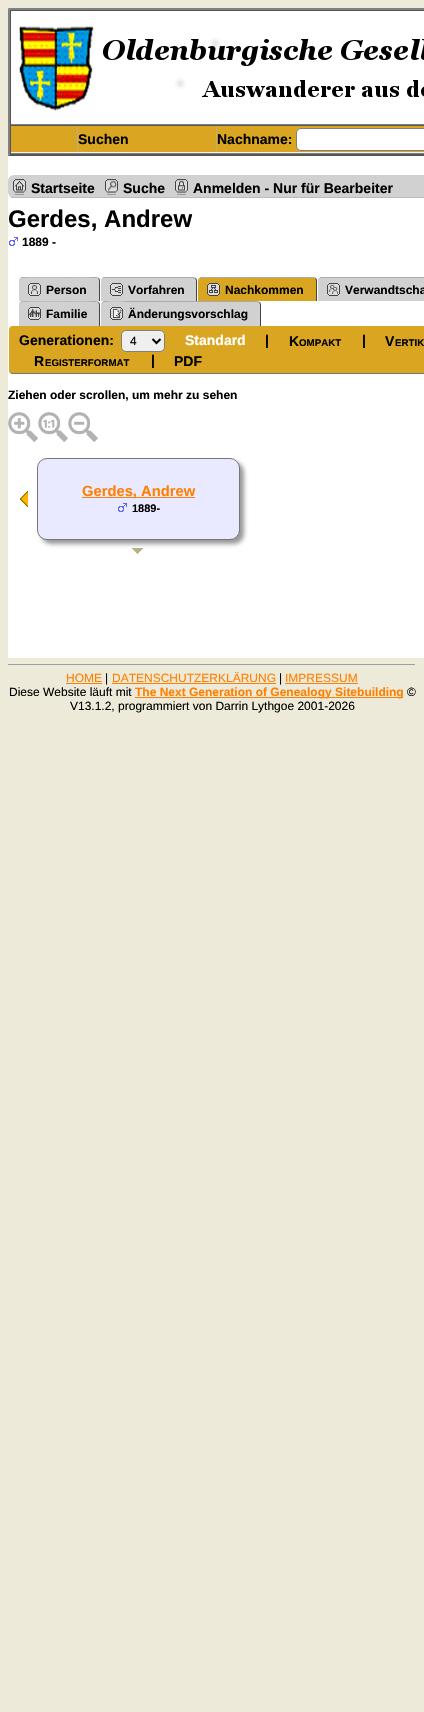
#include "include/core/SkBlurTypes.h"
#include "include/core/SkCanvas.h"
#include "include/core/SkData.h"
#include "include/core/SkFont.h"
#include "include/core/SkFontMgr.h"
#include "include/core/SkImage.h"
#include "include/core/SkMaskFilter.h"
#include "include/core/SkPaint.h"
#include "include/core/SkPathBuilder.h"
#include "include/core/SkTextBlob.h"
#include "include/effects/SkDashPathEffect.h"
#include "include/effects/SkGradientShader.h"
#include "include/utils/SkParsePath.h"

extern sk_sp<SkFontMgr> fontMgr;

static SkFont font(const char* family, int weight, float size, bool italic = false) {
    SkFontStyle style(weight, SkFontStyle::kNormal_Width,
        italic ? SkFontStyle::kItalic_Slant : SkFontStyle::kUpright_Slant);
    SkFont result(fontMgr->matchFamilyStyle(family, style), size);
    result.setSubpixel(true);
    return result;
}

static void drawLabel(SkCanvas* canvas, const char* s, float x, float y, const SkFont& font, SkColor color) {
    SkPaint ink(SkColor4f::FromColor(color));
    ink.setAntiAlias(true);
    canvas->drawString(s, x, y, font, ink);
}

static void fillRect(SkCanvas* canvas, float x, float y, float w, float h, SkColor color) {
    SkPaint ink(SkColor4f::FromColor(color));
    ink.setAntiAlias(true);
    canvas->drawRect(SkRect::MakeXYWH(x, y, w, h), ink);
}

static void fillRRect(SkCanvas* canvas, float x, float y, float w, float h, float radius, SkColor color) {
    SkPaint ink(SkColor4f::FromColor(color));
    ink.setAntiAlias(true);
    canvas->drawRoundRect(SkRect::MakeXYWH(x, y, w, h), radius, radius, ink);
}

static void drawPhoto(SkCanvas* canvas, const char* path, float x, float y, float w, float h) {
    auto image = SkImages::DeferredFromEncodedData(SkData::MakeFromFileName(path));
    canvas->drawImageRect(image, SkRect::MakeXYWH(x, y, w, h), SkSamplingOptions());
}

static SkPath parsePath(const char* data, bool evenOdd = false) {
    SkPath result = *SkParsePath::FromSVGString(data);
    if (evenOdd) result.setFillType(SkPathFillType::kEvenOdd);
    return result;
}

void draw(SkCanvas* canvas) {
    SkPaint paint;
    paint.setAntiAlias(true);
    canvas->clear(0xFFEDEAD9);
    paint.setColor(0xFF808080);
    canvas->drawPath(parsePath("M8 8H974L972 10H10Z"), paint);
    paint.setColor(0xFF555555);
    canvas->drawPath(parsePath("M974 156H8L10 154H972Z"), paint);
    paint.setColor(0xFF808080);
    canvas->drawPath(parsePath("M8 156V8L10 10V154Z"), paint);
    fillRect(canvas, 11, 11, 413, 113, 0xFFFFFFFF);
    fillRect(canvas, 10, 10, 414, 1, 0xFF555555);
    fillRect(canvas, 10, 124, 414, 1, 0xFF808080);
    fillRect(canvas, 10, 10, 1, 115, 0xFF555555);
    drawPhoto(canvas, "assets/img1.png", 19, 26, 405, 85);
    fillRect(canvas, 10, 125, 414, 1, 0xFF555555);
    fillRect(canvas, 10, 153, 414, 1, 0xFF808080);
    fillRect(canvas, 10, 125, 1, 29, 0xFF555555);
    fillRect(canvas, 11, 126, 413, 26, 0xFFDAA520);
    fillRect(canvas, 77, 126, 1, 27, 0xFFB9B186);
    fillRect(canvas, 11, 152, 67, 1, 0xFFF2F2E9);
    fillRect(canvas, 216, 126, 1, 27, 0xFFB9B186);
    fillRect(canvas, 78, 152, 346, 1, 0xFFF2F2E9);
    SkFont font1 = font("Liberation Sans", 700, 14);
    drawLabel(canvas, "Suchen", 78, 144, font1, 0xFF000000);
    drawLabel(canvas, "Nachname:", 217, 144, font1, 0xFF000000);
    paint.setColor(0xFFFFFFFF);
    canvas->drawRoundRect(SkRect::MakeXYWH(296.5f, 128.5f, 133, 22), 4.5f, 4.5f, paint);
    paint.setStroke(true);
    paint.setStrokeWidth(1);
    paint.setColor(0xFF808080);
    canvas->drawRoundRect(SkRect::MakeXYWH(296.5f, 128.5f, 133, 22), 4.5f, 4.5f, paint);
    fillRect(canvas, 8, 156, 416, 502, 0xFFFFFFFF);
    fillRRect(canvas, 8, 175, 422, 23, 6, 0xFFD1D1D1);
    fillRect(canvas, 11, 197, 413, 1, 0xFFBBBBBB);
    drawPhoto(canvas, "assets/img2.png", 13, 179, 13, 16);
    drawLabel(canvas, "Startseite", 31, 193, font1, 0xFF000000);
    drawPhoto(canvas, "assets/img3.png", 105, 179, 13, 16);
    drawLabel(canvas, "Suche", 123, 193, font1, 0xFF000000);
    drawPhoto(canvas, "assets/img4.png", 175, 179, 13, 16);
    drawLabel(canvas, "Anmelden - Nur für Bearbeiter", 193, 193, font1, 0xFF000000);
    SkFont font2 = font("Liberation Sans", 700, 24);
    drawLabel(canvas, "Gerdes, Andrew", 8, 227, font2, 0xFF000000);
    drawPhoto(canvas, "assets/img5.png", 9, 237, 9, 9);
    SkFont font3 = font("Liberation Sans", 700, 12);
    drawLabel(canvas, "1889 -", 22, 246, font3, 0xFF000000);
    paint.setStroke(false);
    paint.setColor(0xFFD1D1D1);
    canvas->drawPath(parsePath("M23 277H96C98 277 100 279 100 281V301H19V281C19 279 21 277 23 277Z"), paint);
    paint.setColor(0xFFAAAAAA);
    canvas->drawPath(parsePath("M23 277C21 277 19 279 19 281L20 279L22 278C28 277 97 278 98 278V279L99 278L96 277Z"), paint);
    paint.setColor(0xFF444444);
    canvas->drawPath(parsePath("M99 301H100V281C100 280 99.5 279 99 278L98 279C99 279 99 280 99 281Z"), paint);
    drawPhoto(canvas, "assets/img6.png", 28, 283, 13, 13);
    drawLabel(canvas, "Person", 46, 294, font3, 0xFF000000);
    paint.setColor(0xFFD1D1D1);
    canvas->drawPath(parsePath("M105 277H193C195 277 197 279 197 281V301H101V281C101 279 103 277 105 277Z"), paint);
    paint.setColor(0xFFAAAAAA);
    canvas->drawPath(parsePath("M105 277C103 277 101 279 101 281C101 279 103 278 105 278H193L195 279L196 278L193 277Z"), paint);
    paint.setColor(0xFF444444);
    canvas->drawPath(parsePath("M196 301H197V281C197 280 196.5 279 196 278L195 279C196 279 196 280 196 281Z"), paint);
    drawPhoto(canvas, "assets/img7.png", 110, 283, 13, 13);
    drawLabel(canvas, "Vorfahren", 128, 294, font3, 0xFF000000);
    paint.setColor(0xFFDAA520);
    canvas->drawPath(parsePath("M202 277H313C315 277 317 279 317 281V301H198V281C198 279 200 277 202 277Z"), paint);
    paint.setColor(0xFFAAAAAA);
    canvas->drawPath(parsePath("M202 277C200 277 198 279 198 281C198 279 200 278 202 278H313L315 279L316 278L313 277Z"), paint);
    paint.setColor(0xFF444444);
    canvas->drawPath(parsePath("M316 301H317V281C317 280 316.5 279 316 278L315 279C316 279 316 280 316 281Z"), paint);
    drawPhoto(canvas, "assets/img8.png", 207, 283, 13, 13);
    drawLabel(canvas, "Nachkommen", 225, 294, font3, 0xFF000000);
    paint.setColor(0xFFD1D1D1);
    canvas->drawPath(parsePath("M322 277H424C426 277 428 279 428 281V301H318V281C318 279 320 277 322 277Z"), paint);
    paint.setColor(0xFFAAAAAA);
    canvas->drawPath(parsePath("M322 277C320 277 318 279 318 281C318 279 320 278 322 278H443L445 279L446 278L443 277Z"), paint);
    drawPhoto(canvas, "assets/img9.png", 327, 283, 13, 13);
    drawLabel(canvas, "Verwandtscha", 345, 294, font3, 0xFF000000);
    paint.setColor(0xFFD1D1D1);
    canvas->drawPath(parsePath("M23 301H96C98 301 100 303 100 305V326H19V305C19 303 21 301 23 301Z"), paint);
    paint.setColor(0xFFAAAAAA);
    canvas->drawPath(parsePath("M23 301C21 301 19 303 19 305L20 303L22 302C28 301 97 302 98 302V303L99 302L96 301Z"), paint);
    paint.setColor(0xFF444444);
    canvas->drawPath(parsePath("M99 326H100V305C100 304 99.5 303 99 302L98 303C99 303 99 304 99 305Z"), paint);
    drawPhoto(canvas, "assets/img10.png", 28, 307, 13, 13);
    drawLabel(canvas, "Familie", 46, 318, font3, 0xFF000000);
    paint.setColor(0xFFD1D1D1);
    canvas->drawPath(parsePath("M105 301H257C259 301 261 303 261 305V326H101V305C101 303 103 301 105 301Z"), paint);
    paint.setColor(0xFFAAAAAA);
    canvas->drawPath(parsePath("M105 301C103 301 101 303 101 305C101 299 124 302 130 302H257L259 303L260 302L257 301Z"), paint);
    paint.setColor(0xFF444444);
    canvas->drawPath(parsePath("M260 326H261V305C261 304 260.5 303 260 302L259 303C260 303 260 304 260 305Z"), paint);
    drawPhoto(canvas, "assets/img11.png", 110, 307, 13, 13);
    drawLabel(canvas, "Änderungsvorschlag", 128, 318, font3, 0xFF000000);
    fillRRect(canvas, 9, 326, 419, 48, 4, 0xFFDAA520);
    paint.setColor(0xFF777777);
    canvas->drawPath(parsePath("M13 326H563C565 326 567 328 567 330V370C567 372 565 374 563 374H13C11 374 9 372 9 370V330C9 328 11 326 13 326ZM13 326H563C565 326 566 328 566 330V370C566 372 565 373 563 373H13C11 373 9 372 9 370V330C9 328 11 326 13 326Z", true), paint);
    drawLabel(canvas, "Generationen:", 19, 345, font1, 0xFF000000);
    paint.setColor(0xFFEFEFEF);
    canvas->drawRoundRect(SkRect::MakeXYWH(121.5f, 330.5f, 43, 21), 4.5f, 4.5f, paint);
    paint.setStroke(true);
    paint.setColor(0xFF808080);
    canvas->drawRoundRect(SkRect::MakeXYWH(121.5f, 330.5f, 43, 21), 4.5f, 4.5f, paint);
    paint.setStrokeWidth(2);
    paint.setColor(0xFF000000);
    canvas->drawPath(parsePath("M152.5 339L156.5 343L160.5 339"), paint);
    SkFont font4 = font("Liberation Sans", 400, 12);
    drawLabel(canvas, "4", 130, 345, font4, 0xFF000000);
    drawLabel(canvas, "Standard", 185, 345, font1, 0xFFFFFFFF);
    drawLabel(canvas, "|", 265, 345, font1, 0xFF000000);
    drawLabel(canvas, "K", 289, 346, font1, 0xFF000000);
    SkFont font5 = font("Liberation Sans", 700, 9.75f);
    drawLabel(canvas, "OMPAKT", 299, 346, font5, 0xFF000000);
    drawLabel(canvas, "|", 362, 345, font1, 0xFF000000);
    drawLabel(canvas, "V", 385, 346, font1, 0xFF000000);
    drawLabel(canvas, "ERTIK", 395, 346, font5, 0xFF000000);
    drawLabel(canvas, "R", 34, 366, font1, 0xFF000000);
    drawLabel(canvas, "EGISTERFORMAT", 45, 366, font5, 0xFF000000);
    drawLabel(canvas, "|", 151, 365, font1, 0xFF000000);
    drawLabel(canvas, "PDF", 174, 366, font1, 0xFF000000);
    drawLabel(canvas, "Ziehen oder scrollen, um mehr zu sehen", 8, 399, font3, 0xFF000000);
    drawPhoto(canvas, "assets/img12.png", 8, 412, 30, 30);
    drawPhoto(canvas, "assets/img13.png", 38, 412, 30, 30);
    drawPhoto(canvas, "assets/img14.png", 68, 412, 30, 30);
    drawPhoto(canvas, "assets/img15.png", 20, 491, 8, 16);
    paint.setStroke(false);
    paint.setColor(0xFF999999);
    paint.setMaskFilter(SkMaskFilter::MakeBlur(kNormal_SkBlurStyle, 2));
    canvas->drawRoundRect(SkRect::MakeXYWH(41, 462, 203, 82), 10, 10, paint);
    paint.setMaskFilter(nullptr);
    paint.setColor(0xFFE9E9FF);
    canvas->drawRoundRect(SkRect::MakeXYWH(37.5f, 458.5f, 202, 81), 9.5f, 9.5f, paint);
    paint.setStroke(true);
    paint.setStrokeWidth(1);
    paint.setColor(0xFF777777);
    canvas->drawRoundRect(SkRect::MakeXYWH(37.5f, 458.5f, 202, 81), 9.5f, 9.5f, paint);
    fillRect(canvas, 82, 497, 113, 1, 0xFFFF8000);
    SkFont font6 = font("Liberation Sans", 700, 14.75f);
    drawLabel(canvas, "Gerdes, Andrew", 82, 496, font6, 0xFFFF8000);
    drawPhoto(canvas, "assets/img16.png", 118, 503, 9, 9);
    SkFont font7 = font("Liberation Sans", 700, 11);
    drawLabel(canvas, "1889-", 132, 512, font7, 0xFF000000);
    drawPhoto(canvas, "assets/img17.png", 132, 548, 11, 6);
    fillRect(canvas, 8, 664, 408, 1, 0xFF9F9F9F);
    fillRect(canvas, 415, 664, 1, 1, 0xFFEEEEEE);
    drawLabel(canvas, "HOME", 66, 682, font4, 0xFFFF8000);
    fillRect(canvas, 66, 683, 36, 1, 0xFFFF8000);
    drawLabel(canvas, "|", 105, 682, font4, 0xFF000000);
    drawLabel(canvas, "DATENSCHUTZERKLÄRUNG", 112, 682, font4, 0xFFFF8000);
    fillRect(canvas, 112, 683, 164, 1, 0xFFFF8000);
    drawLabel(canvas, "|", 279, 682, font4, 0xFF000000);
    drawLabel(canvas, "IMPRESSUM", 285, 682, font4, 0xFFFF8000);
    fillRect(canvas, 285, 683, 73, 1, 0xFFFF8000);
    drawLabel(canvas, "Diese Website läuft mit", 9, 696, font4, 0xFF000000);
    fillRect(canvas, 135, 697, 268, 1, 0xFFFF8000);
    drawLabel(canvas, "The Next Generation of Genealogy Sitebuilding", 135, 696, font3, 0xFFFF8000);
    drawLabel(canvas, "©", 407, 696, font4, 0xFF000000);
    drawLabel(canvas, "V13.1.2, programmiert von Darrin Lythgoe 2001-2026", 70, 710, font4, 0xFF000000);
}
